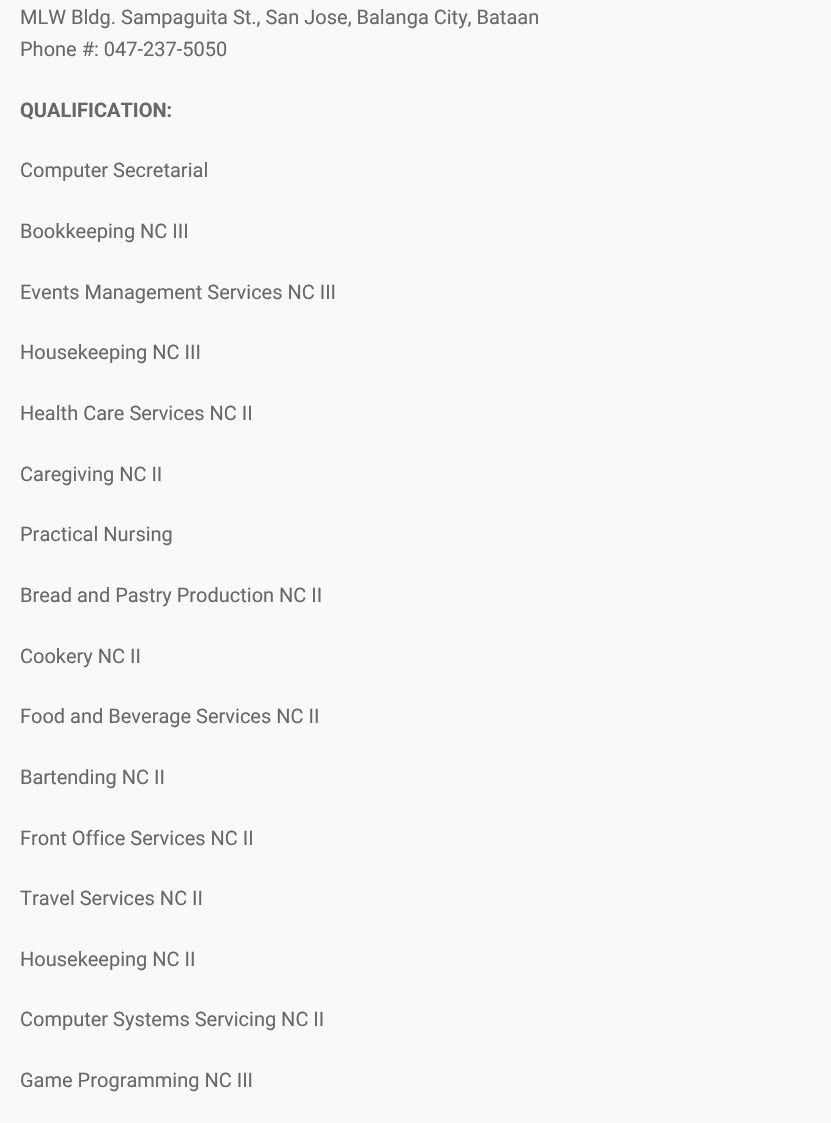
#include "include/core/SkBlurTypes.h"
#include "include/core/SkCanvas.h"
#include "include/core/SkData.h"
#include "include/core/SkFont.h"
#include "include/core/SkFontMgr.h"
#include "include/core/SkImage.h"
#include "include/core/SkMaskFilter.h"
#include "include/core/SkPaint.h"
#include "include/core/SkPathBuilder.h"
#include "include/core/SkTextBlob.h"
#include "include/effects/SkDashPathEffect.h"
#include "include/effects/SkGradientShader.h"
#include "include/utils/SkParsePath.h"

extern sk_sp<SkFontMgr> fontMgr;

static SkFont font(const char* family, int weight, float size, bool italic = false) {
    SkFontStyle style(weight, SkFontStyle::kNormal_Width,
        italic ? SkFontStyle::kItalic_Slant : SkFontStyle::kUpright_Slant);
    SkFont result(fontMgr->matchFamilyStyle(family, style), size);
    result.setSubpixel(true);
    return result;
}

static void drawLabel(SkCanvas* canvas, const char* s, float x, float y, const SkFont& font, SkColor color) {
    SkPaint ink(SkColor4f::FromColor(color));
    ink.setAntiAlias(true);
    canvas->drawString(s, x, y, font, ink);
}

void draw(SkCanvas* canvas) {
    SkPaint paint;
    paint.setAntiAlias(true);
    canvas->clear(0xFFF9F9F9);
    SkFont font1 = font("Roboto", 400, 20);
    drawLabel(canvas, "MLW Bldg. Sampaguita St., San Jose, Balanga City, Bataan", 20, 24, font1, 0xFF686868);
    drawLabel(canvas, "Phone #: 047-237-5050", 20, 56, font1, 0xFF686868);
    SkFont font2 = font("Roboto", 700, 20);
    drawLabel(canvas, "QUALIFICATION:", 20, 117, font2, 0xFF686868);
    drawLabel(canvas, "Computer Secretarial", 20, 177, font1, 0xFF686868);
    drawLabel(canvas, "Bookkeeping NC III", 20, 238, font1, 0xFF686868);
    drawLabel(canvas, "Events Management Services NC III", 20, 299, font1, 0xFF686868);
    drawLabel(canvas, "Housekeeping NC III", 20, 359, font1, 0xFF686868);
    drawLabel(canvas, "Health Care Services NC II", 20, 420, font1, 0xFF686868);
    drawLabel(canvas, "Caregiving NC II", 20, 481, font1, 0xFF686868);
    drawLabel(canvas, "Practical Nursing", 20, 541, font1, 0xFF686868);
    drawLabel(canvas, "Bread and Pastry Production NC II", 20, 602, font1, 0xFF686868);
    drawLabel(canvas, "Cookery NC II", 20, 663, font1, 0xFF686868);
    drawLabel(canvas, "Food and Beverage Services NC II", 20, 723, font1, 0xFF686868);
    drawLabel(canvas, "Bartending NC II", 20, 784, font1, 0xFF686868);
    drawLabel(canvas, "Front Office Services NC II", 20, 845, font1, 0xFF686868);
    drawLabel(canvas, "Travel Services NC II", 20, 905, font1, 0xFF686868);
    drawLabel(canvas, "Housekeeping NC II", 20, 966, font1, 0xFF686868);
    drawLabel(canvas, "Computer Systems Servicing NC II", 20, 1026, font1, 0xFF686868);
    drawLabel(canvas, "Game Programming NC III", 20, 1087, font1, 0xFF686868);
}
